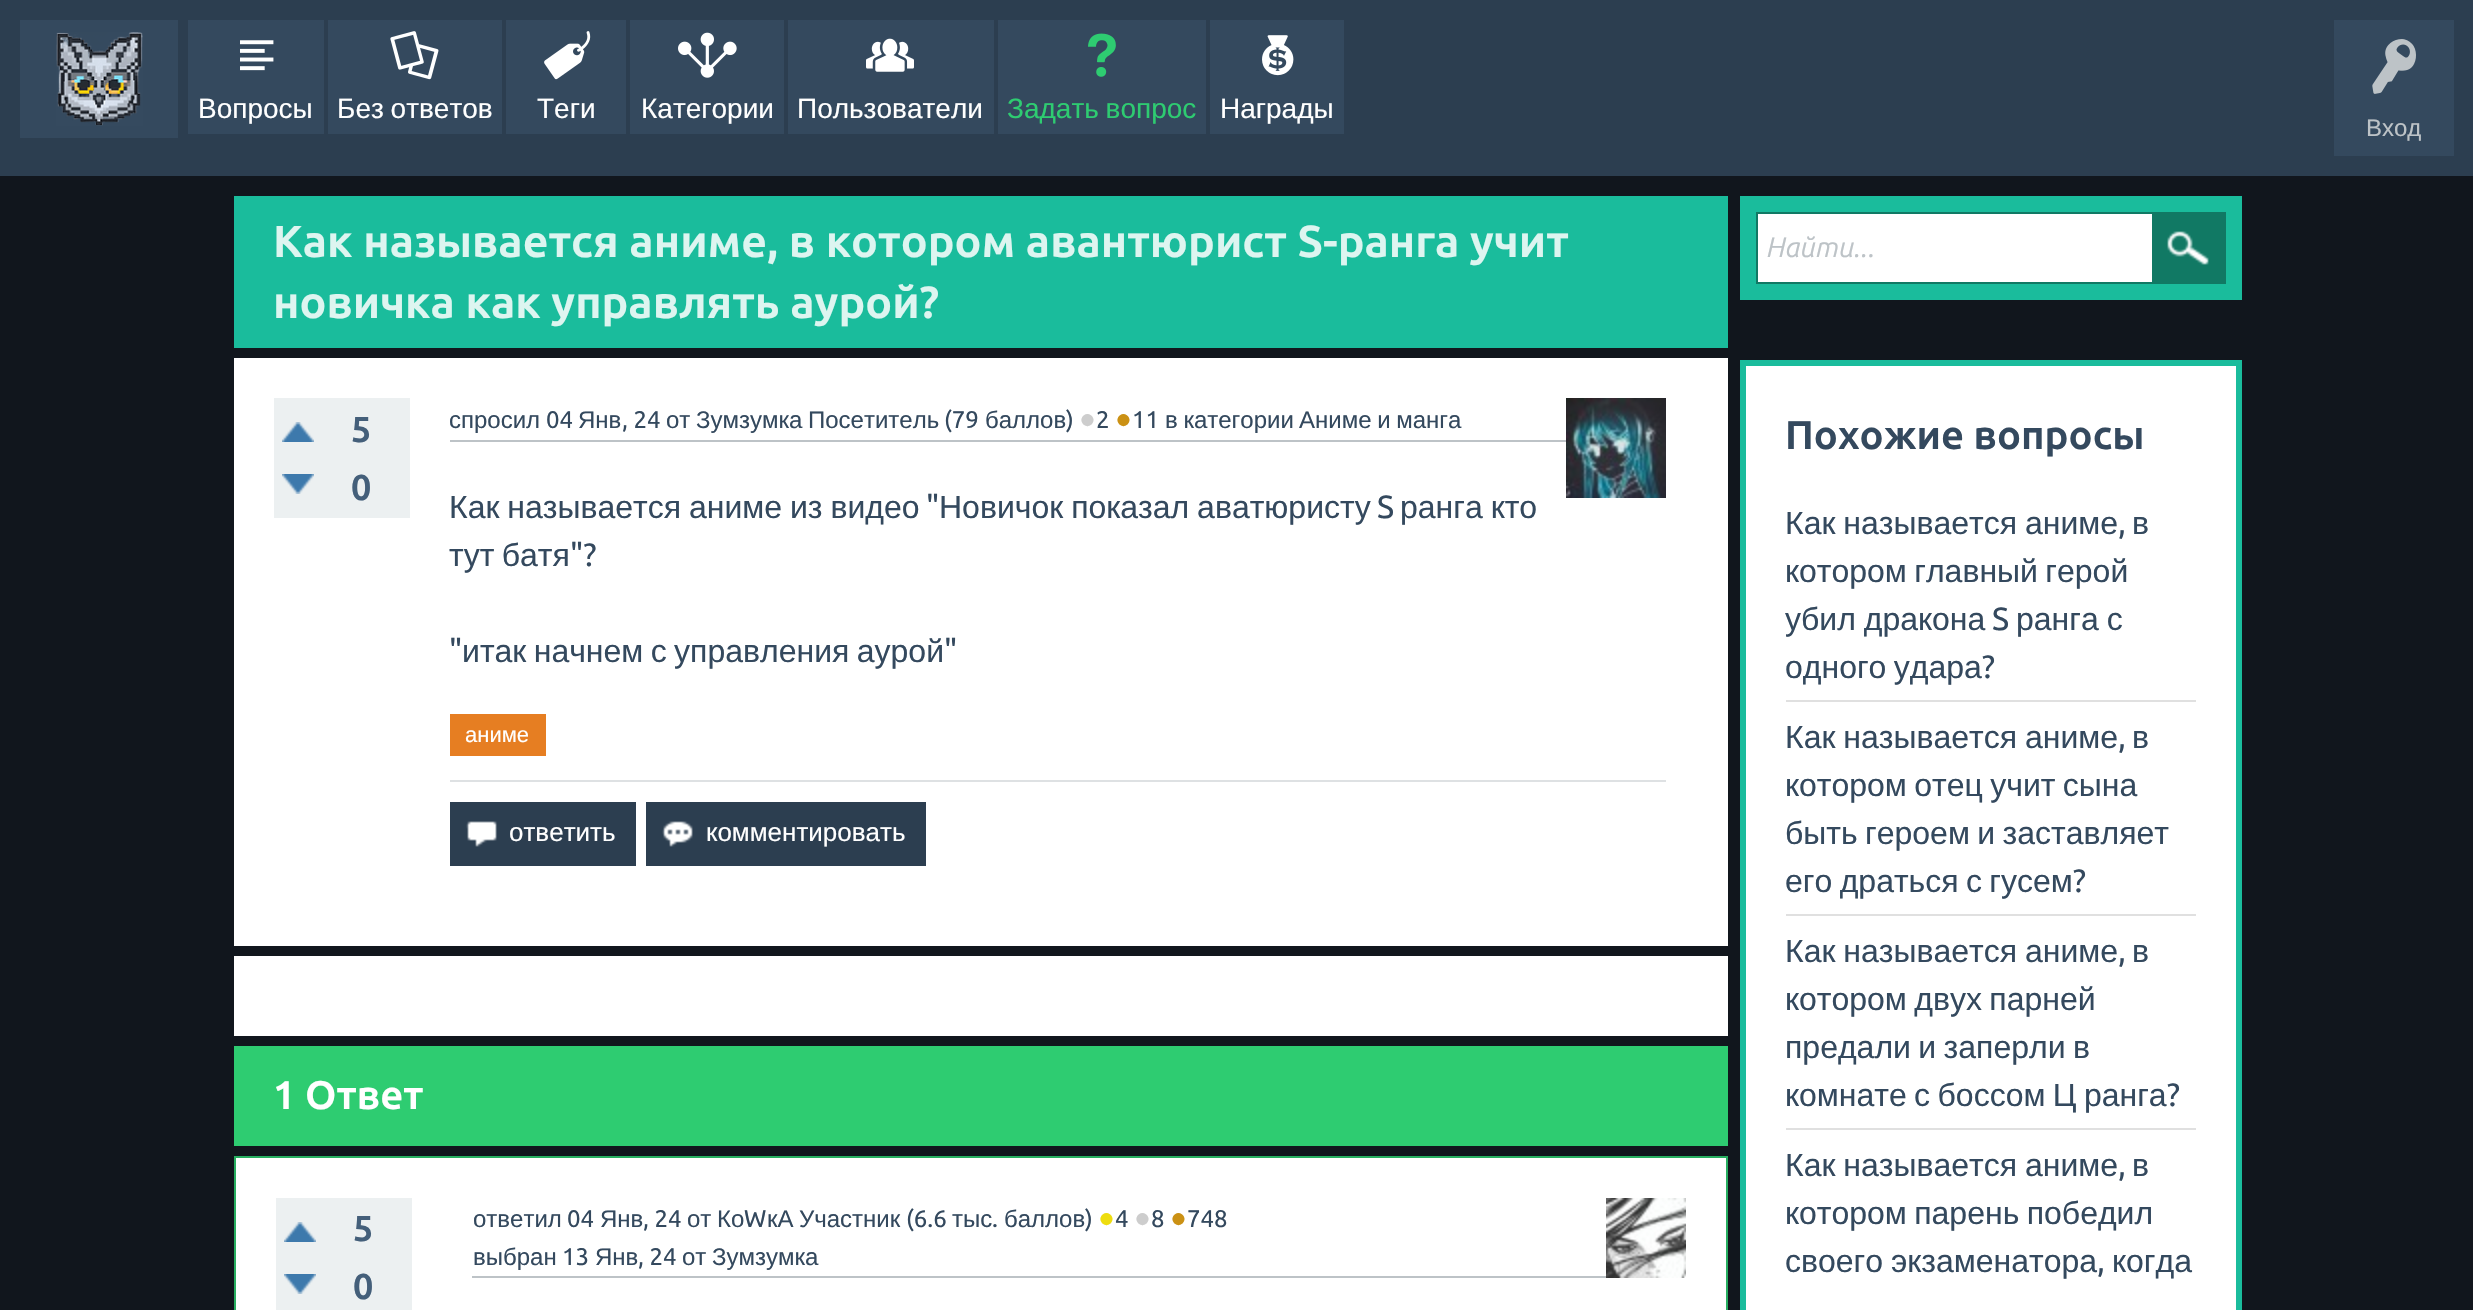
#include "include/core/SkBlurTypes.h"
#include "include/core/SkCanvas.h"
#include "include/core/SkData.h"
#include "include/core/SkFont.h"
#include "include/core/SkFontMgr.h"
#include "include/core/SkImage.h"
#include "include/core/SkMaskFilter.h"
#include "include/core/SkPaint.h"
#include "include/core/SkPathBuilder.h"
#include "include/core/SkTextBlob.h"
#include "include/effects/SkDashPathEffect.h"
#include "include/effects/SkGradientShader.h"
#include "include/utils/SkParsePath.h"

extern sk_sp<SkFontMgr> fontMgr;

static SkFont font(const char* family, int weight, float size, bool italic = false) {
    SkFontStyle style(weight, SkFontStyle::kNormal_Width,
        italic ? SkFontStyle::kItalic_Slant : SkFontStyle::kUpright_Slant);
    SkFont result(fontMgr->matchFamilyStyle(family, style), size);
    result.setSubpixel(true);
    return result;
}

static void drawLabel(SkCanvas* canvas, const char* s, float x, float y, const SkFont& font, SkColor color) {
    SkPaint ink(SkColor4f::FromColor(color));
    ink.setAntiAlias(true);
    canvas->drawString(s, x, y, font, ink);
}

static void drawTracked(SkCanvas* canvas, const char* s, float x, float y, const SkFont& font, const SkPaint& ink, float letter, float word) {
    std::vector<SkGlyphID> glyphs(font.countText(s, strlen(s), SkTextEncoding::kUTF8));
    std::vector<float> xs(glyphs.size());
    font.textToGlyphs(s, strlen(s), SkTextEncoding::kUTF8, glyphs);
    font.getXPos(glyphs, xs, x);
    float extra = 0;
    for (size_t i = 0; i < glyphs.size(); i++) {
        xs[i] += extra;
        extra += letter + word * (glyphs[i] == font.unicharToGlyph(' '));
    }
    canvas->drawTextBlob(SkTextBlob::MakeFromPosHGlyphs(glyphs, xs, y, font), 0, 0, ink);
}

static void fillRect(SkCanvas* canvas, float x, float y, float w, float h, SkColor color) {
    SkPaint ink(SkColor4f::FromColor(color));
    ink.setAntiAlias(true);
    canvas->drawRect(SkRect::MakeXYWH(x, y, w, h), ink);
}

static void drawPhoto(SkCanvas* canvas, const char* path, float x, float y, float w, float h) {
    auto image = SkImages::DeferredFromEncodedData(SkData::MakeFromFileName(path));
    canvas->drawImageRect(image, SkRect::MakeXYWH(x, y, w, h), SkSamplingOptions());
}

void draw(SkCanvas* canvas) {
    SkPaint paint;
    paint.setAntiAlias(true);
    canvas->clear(0xFF11161D);
    fillRect(canvas, 0, 0, 2473, 176, 0xFF2C3E50);
    fillRect(canvas, 20, 20, 158, 118, 0xFF34495E);
    drawPhoto(canvas, "assets/img1.png", 56, 32, 87, 94);
    fillRect(canvas, 188, 20, 136, 114, 0xFF34495E);
    drawPhoto(canvas, "assets/img2.png", 240, 40, 34, 31);
    SkFont font1 = font("Liberation Sans", 400, 28);
    drawLabel(canvas, "Вопросы", 198, 118, font1, 0xFFFFFFFF);
    fillRect(canvas, 328, 20, 174, 114, 0xFF34495E);
    drawPhoto(canvas, "assets/img3.png", 390, 31, 49, 49);
    paint.setColor(0xFFFFFFFF);
    drawTracked(canvas, "Без ответов", 337, 118, font1, paint, 0, -1);
    fillRect(canvas, 506, 20, 120, 114, 0xFF34495E);
    drawPhoto(canvas, "assets/img4.png", 544, 31, 47, 49);
    drawLabel(canvas, "Теги", 537, 118, font1, 0xFFFFFFFF);
    fillRect(canvas, 630, 20, 154, 114, 0xFF34495E);
    drawPhoto(canvas, "assets/img5.png", 678, 32, 59, 46);
    drawLabel(canvas, "Категории", 641, 118, font1, 0xFFFFFFFF);
    fillRect(canvas, 788, 20, 206, 114, 0xFF34495E);
    drawPhoto(canvas, "assets/img6.png", 866, 38, 48, 34);
    drawLabel(canvas, "Пользователи", 797, 118, font1, 0xFFFFFFFF);
    fillRect(canvas, 998, 20, 208, 114, 0xFF34495E);
    drawPhoto(canvas, "assets/img7.png", 1088, 33, 28, 44);
    paint.setColor(0xFF2ECC71);
    drawTracked(canvas, "Задать вопрос", 1007, 118, font1, paint, 0, -1);
    fillRect(canvas, 1210, 20, 134, 114, 0xFF34495E);
    drawPhoto(canvas, "assets/img8.png", 1262, 35, 32, 41);
    drawLabel(canvas, "Награды", 1220, 118, font1, 0xFFFFFFFF);
    fillRect(canvas, 2334, 20, 120, 136, 0xFF34495E);
    drawPhoto(canvas, "assets/img9.png", 2372, 39, 44, 55);
    SkFont font2 = font("Liberation Sans", 400, 24);
    drawLabel(canvas, "Вход", 2366, 136, font2, 0xFFBDC3C7);
    fillRect(canvas, 234, 196, 1494, 152, 0xFF1ABC9C);
    SkFont font3 = font("Ubuntu", 700, 44.8f);
    drawLabel(canvas, "Как называется аниме, в котором авантюрист S-ранга учит", 273, 257, font3, 0xFFDDF5F0);
    drawLabel(canvas, "новичка как управлять аурой?", 273, 318, font3, 0xFFDDF5F0);
    fillRect(canvas, 234, 358, 1494, 588, 0xFFFFFFFF);
    fillRect(canvas, 274, 398, 136, 120, 0xFFECF0F1);
    drawPhoto(canvas, "assets/img10.png", 282, 422, 32, 20);
    drawPhoto(canvas, "assets/img11.png", 282, 474, 32, 20);
    SkFont font4 = font("Ubuntu", 700, 36);
    drawLabel(canvas, "5", 351, 442, font4, 0xFF445F7A);
    drawLabel(canvas, "0", 351, 500, font4, 0xFF445F7A);
    fillRect(canvas, 450, 440, 1116, 2, 0xFFBDC3C7);
    drawLabel(canvas, "спросил", 449, 428, font2, 0xFF34495E);
    SkFont font5 = font("Ubuntu", 400, 24);
    drawLabel(canvas, "04", 546, 428, font5, 0xFF34495E);
    drawLabel(canvas, "Янв", 578, 428, font2, 0xFF34495E);
    drawLabel(canvas, ", 24", 622, 428, font5, 0xFF34495E);
    drawLabel(canvas, "от", 666, 428, font2, 0xFF34495E);
    drawLabel(canvas, "Зумзумка", 696, 428, font2, 0xFF34495E);
    drawLabel(canvas, "Посетитель", 808, 428, font2, 0xFF34495E);
    drawLabel(canvas, "(79", 944, 428, font5, 0xFF34495E);
    drawLabel(canvas, "баллов", 985, 428, font2, 0xFF34495E);
    drawLabel(canvas, ")", 1066, 428, font5, 0xFF34495E);
    drawLabel(canvas, "●", 1079, 428, font1, 0xFFCDCDCD);
    drawLabel(canvas, "2", 1096, 428, font5, 0xFF34495E);
    drawLabel(canvas, "●", 1115, 428, font1, 0xFFCB9114);
    drawLabel(canvas, "11", 1132, 428, font5, 0xFF34495E);
    paint.setColor(0xFF34495E);
    drawTracked(canvas, "в категории", 1165, 428, font2, paint, 0, -1);
    drawTracked(canvas, "Аниме и манга", 1299, 428, font2, paint, 0, -1);
    drawPhoto(canvas, "assets/img12.png", 1566, 398, 100, 100);
    SkFont font6 = font("Liberation Sans", 400, 32);
    drawTracked(canvas, "Как называется аниме из видео", 449, 518, font6, paint, 0, -1);
    SkFont font7 = font("Ubuntu", 400, 32);
    drawLabel(canvas, "\"", 926, 518, font7, 0xFF34495E);
    drawTracked(canvas, "Новичок показал аватюристу", 939, 518, font6, paint, 0, -1);
    drawLabel(canvas, "S", 1377, 518, font7, 0xFF34495E);
    drawTracked(canvas, "ранга кто", 1400, 518, font6, paint, 0, -1);
    drawTracked(canvas, "тут батя", 449, 566, font6, paint, 0, -1.5f);
    drawLabel(canvas, "\"?", 570, 566, font7, 0xFF34495E);
    drawLabel(canvas, "\"", 449, 662, font7, 0xFF34495E);
    drawTracked(canvas, "итак начнем с управления аурой", 462, 662, font6, paint, 0, -1.5f);
    drawLabel(canvas, "\"", 944, 662, font7, 0xFF34495E);
    fillRect(canvas, 450, 714, 96, 42, 0xFFE67E22);
    SkFont font8 = font("Liberation Sans", 400, 22);
    drawLabel(canvas, "аниме", 465, 742, font8, 0xFFFFFFFF);
    fillRect(canvas, 450, 780, 1216, 2, 0xFFDEE1E3);
    fillRect(canvas, 450, 802, 186, 64, 0xFF2C3E50);
    drawPhoto(canvas, "assets/img13.png", 466, 821, 31, 26);
    SkFont font9 = font("Liberation Sans", 400, 26);
    drawLabel(canvas, "ответить", 509, 841, font9, 0xFFFFFFFF);
    fillRect(canvas, 646, 802, 280, 64, 0xFF2C3E50);
    drawPhoto(canvas, "assets/img14.png", 662, 821, 31, 26);
    drawLabel(canvas, "комментировать", 706, 841, font9, 0xFFFFFFFF);
    fillRect(canvas, 234, 956, 1494, 80, 0xFFFFFFFF);
    fillRect(canvas, 234, 1046, 1494, 100, 0xFF2ECC71);
    SkFont font10 = font("Ubuntu", 700, 40);
    drawLabel(canvas, "1 Ответ", 273, 1109, font10, 0xFFFFFFFF);
    paint.setColor(0xFFFFFFFF);
    canvas->drawRect(SkRect::MakeXYWH(235, 1157, 1492, 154), paint);
    paint.setStroke(true);
    paint.setStrokeWidth(2);
    paint.setColor(0xFF27AE60);
    canvas->drawRect(SkRect::MakeXYWH(235, 1157, 1492, 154), paint);
    fillRect(canvas, 276, 1198, 136, 112, 0xFFECF0F1);
    drawPhoto(canvas, "assets/img10.png", 284, 1222, 32, 20);
    drawPhoto(canvas, "assets/img11.png", 284, 1274, 32, 20);
    drawLabel(canvas, "5", 353, 1241, font4, 0xFF445F7A);
    drawLabel(canvas, "0", 353, 1299, font4, 0xFF445F7A);
    fillRect(canvas, 472, 1276, 1134, 2, 0xFFBDC3C7);
    drawLabel(canvas, "ответил", 473, 1227, font2, 0xFF34495E);
    drawLabel(canvas, "04", 567, 1227, font5, 0xFF34495E);
    drawLabel(canvas, "Янв", 600, 1227, font2, 0xFF34495E);
    drawLabel(canvas, ", 24", 643, 1227, font5, 0xFF34495E);
    drawLabel(canvas, "от", 687, 1227, font2, 0xFF34495E);
    drawLabel(canvas, "Ко", 717, 1227, font2, 0xFF34495E);
    drawLabel(canvas, "W", 744, 1227, font5, 0xFF34495E);
    drawLabel(canvas, "кА", 767, 1227, font2, 0xFF34495E);
    drawLabel(canvas, "Участник", 799, 1227, font2, 0xFF34495E);
    drawLabel(canvas, "(6.6", 906, 1227, font5, 0xFF34495E);
    drawLabel(canvas, "тыс", 952, 1227, font2, 0xFF34495E);
    drawLabel(canvas, ".", 992, 1227, font5, 0xFF34495E);
    drawLabel(canvas, "баллов", 1004, 1227, font2, 0xFF34495E);
    drawLabel(canvas, ")", 1085, 1227, font5, 0xFF34495E);
    drawLabel(canvas, "●", 1098, 1227, font1, 0xFFEEDD0F);
    drawLabel(canvas, "4", 1115, 1227, font5, 0xFF34495E);
    drawLabel(canvas, "●", 1134, 1227, font1, 0xFFCDCDCD);
    drawLabel(canvas, "8", 1151, 1227, font5, 0xFF34495E);
    drawLabel(canvas, "●", 1170, 1227, font1, 0xFFCB9114);
    drawLabel(canvas, "748", 1187, 1227, font5, 0xFF34495E);
    drawLabel(canvas, "выбран", 473, 1265, font2, 0xFF34495E);
    drawLabel(canvas, "13", 562, 1265, font5, 0xFF34495E);
    drawLabel(canvas, "Янв", 595, 1265, font2, 0xFF34495E);
    drawLabel(canvas, ", 24", 638, 1265, font5, 0xFF34495E);
    drawLabel(canvas, "от", 682, 1265, font2, 0xFF34495E);
    drawLabel(canvas, "Зумзумка", 712, 1265, font2, 0xFF34495E);
    drawPhoto(canvas, "assets/img15.png", 1606, 1198, 80, 80);
    fillRect(canvas, 1740, 196, 502, 104, 0xFF1ABC9C);
    fillRect(canvas, 1758, 214, 394, 68, 0xFFFFFFFF);
    paint.setColor(0xFF117964);
    canvas->drawRect(SkRect::MakeXYWH(1757, 213, 468, 70), paint);
    SkFont font11 = font("Ubuntu", 400, 28, true);
    drawLabel(canvas, "Найти...", 1767, 257, font11, 0xFFBDC3C7);
    fillRect(canvas, 2152, 214, 72, 68, 0xFF117964);
    drawPhoto(canvas, "assets/img16.png", 2167, 231, 42, 34);
    paint.setStroke(false);
    paint.setColor(0xFFFFFFFF);
    canvas->drawRect(SkRect::MakeXYWH(1743, 363, 496, 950), paint);
    paint.setStroke(true);
    paint.setStrokeWidth(6);
    paint.setColor(0xFF1ABC9C);
    canvas->drawRect(SkRect::MakeXYWH(1743, 363, 496, 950), paint);
    drawLabel(canvas, "Похожие вопросы", 1785, 449, font10, 0xFF34495E);
    fillRect(canvas, 1786, 700, 410, 2, 0xFFE0E0E0);
    paint.setStroke(false);
    paint.setColor(0xFF34495E);
    drawTracked(canvas, "Как называется аниме", 1785, 534, font6, paint, 0, -1);
    drawLabel(canvas, "в", 2132, 534, font6, 0xFF34495E);
    drawLabel(canvas, ",", 2118, 534, font7, 0xFF34495E);
    drawTracked(canvas, "котором главный герой", 1785, 582, font6, paint, 0, -1.5f);
    drawTracked(canvas, "убил дракона", 1785, 630, font6, paint, 0, -1);
    drawLabel(canvas, "S", 1992, 630, font7, 0xFF34495E);
    drawTracked(canvas, "ранга с", 2016, 630, font6, paint, 0, -1);
    drawTracked(canvas, "одного удара", 1785, 678, font6, paint, 0, -1.5f);
    drawLabel(canvas, "?", 1982, 678, font7, 0xFF34495E);
    fillRect(canvas, 1786, 914, 410, 2, 0xFFE0E0E0);
    drawTracked(canvas, "Как называется аниме", 1785, 748, font6, paint, 0, -1);
    drawLabel(canvas, "в", 2132, 748, font6, 0xFF34495E);
    drawLabel(canvas, ",", 2118, 748, font7, 0xFF34495E);
    drawTracked(canvas, "котором отец учит сына", 1785, 796, font6, paint, 0, -1.5f);
    drawTracked(canvas, "быть героем и заставляет", 1785, 844, font6, paint, 0, -1.5f);
    drawTracked(canvas, "его драться с гусем", 1785, 892, font6, paint, 0, -1.5f);
    drawLabel(canvas, "?", 2073, 892, font7, 0xFF34495E);
    fillRect(canvas, 1786, 1128, 410, 2, 0xFFE0E0E0);
    drawTracked(canvas, "Как называется аниме", 1785, 962, font6, paint, 0, -1);
    drawLabel(canvas, "в", 2132, 962, font6, 0xFF34495E);
    drawLabel(canvas, ",", 2118, 962, font7, 0xFF34495E);
    drawTracked(canvas, "котором двух парней", 1785, 1010, font6, paint, 0, -1.5f);
    drawTracked(canvas, "предали и заперли в", 1785, 1058, font6, paint, 0, -1.5f);
    drawTracked(canvas, "комнате с боссом Ц ранга", 1785, 1106, font6, paint, 0, -1.5f);
    drawLabel(canvas, "?", 2167, 1106, font7, 0xFF34495E);
    drawTracked(canvas, "Как называется аниме", 1785, 1176, font6, paint, 0, -1);
    drawLabel(canvas, "в", 2132, 1176, font6, 0xFF34495E);
    drawLabel(canvas, ",", 2118, 1176, font7, 0xFF34495E);
    drawTracked(canvas, "котором парень победил", 1785, 1224, font6, paint, 0, -1.5f);
    drawTracked(canvas, "своего экзаменатора", 1785, 1272, font6, paint, 0, -1);
    drawLabel(canvas, ",", 2097, 1272, font7, 0xFF34495E);
    drawLabel(canvas, "когда", 2112, 1272, font6, 0xFF34495E);
}
